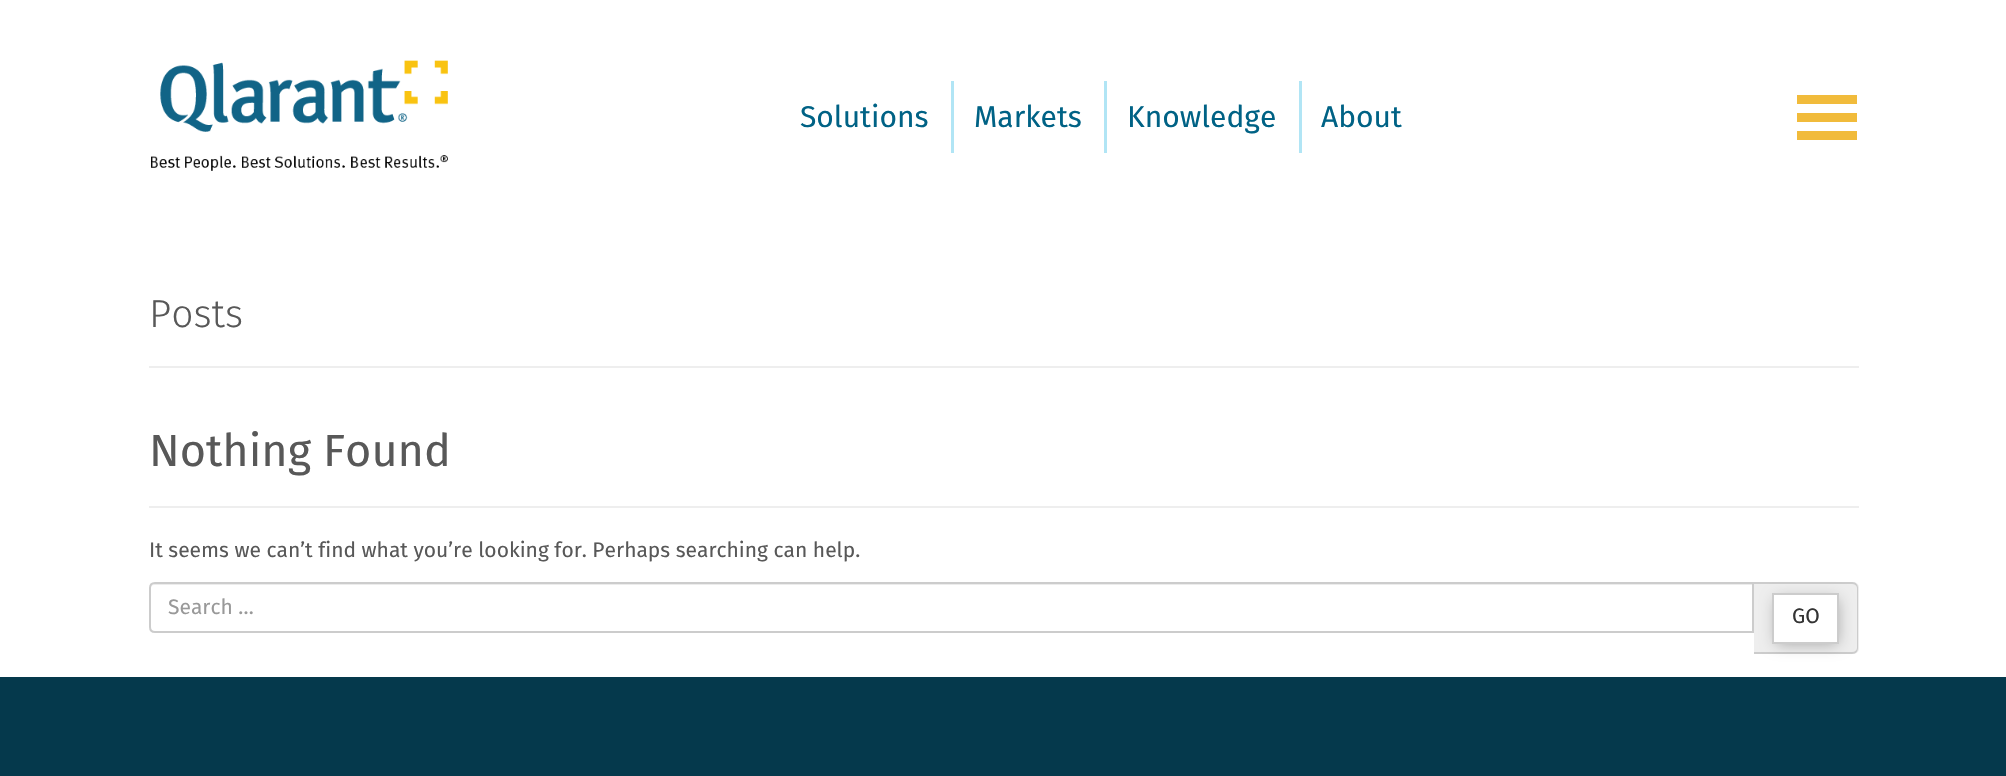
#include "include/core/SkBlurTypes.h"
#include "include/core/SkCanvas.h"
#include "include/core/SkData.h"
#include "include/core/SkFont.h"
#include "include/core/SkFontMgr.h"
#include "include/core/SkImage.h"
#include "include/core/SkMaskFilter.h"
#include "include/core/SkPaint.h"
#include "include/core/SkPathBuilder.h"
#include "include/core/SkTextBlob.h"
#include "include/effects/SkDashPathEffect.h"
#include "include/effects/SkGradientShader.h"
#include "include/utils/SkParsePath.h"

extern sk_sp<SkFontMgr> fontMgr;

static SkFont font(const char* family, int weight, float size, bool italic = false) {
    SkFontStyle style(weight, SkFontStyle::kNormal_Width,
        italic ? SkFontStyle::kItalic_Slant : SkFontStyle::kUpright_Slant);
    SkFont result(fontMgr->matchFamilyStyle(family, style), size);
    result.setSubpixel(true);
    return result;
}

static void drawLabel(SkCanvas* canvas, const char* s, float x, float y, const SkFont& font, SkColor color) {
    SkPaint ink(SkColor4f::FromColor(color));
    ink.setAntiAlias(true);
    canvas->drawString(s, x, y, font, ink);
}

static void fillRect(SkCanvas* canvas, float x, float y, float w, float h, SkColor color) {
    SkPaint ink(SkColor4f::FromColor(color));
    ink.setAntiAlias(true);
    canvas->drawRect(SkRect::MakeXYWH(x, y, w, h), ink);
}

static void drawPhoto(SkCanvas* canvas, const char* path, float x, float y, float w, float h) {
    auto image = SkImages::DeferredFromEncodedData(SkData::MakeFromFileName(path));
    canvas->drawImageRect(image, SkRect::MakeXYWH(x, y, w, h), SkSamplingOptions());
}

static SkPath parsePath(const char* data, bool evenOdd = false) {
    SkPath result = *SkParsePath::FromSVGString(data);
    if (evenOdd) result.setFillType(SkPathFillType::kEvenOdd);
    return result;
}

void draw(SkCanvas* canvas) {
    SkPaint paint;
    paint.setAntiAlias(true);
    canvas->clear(0xFF05394C);
    fillRect(canvas, 0, 0, 2006, 677, 0xFFFFFFFF);
    drawPhoto(canvas, "assets/img1.png", 151, 60, 297, 111);
    SkFont font1 = font("Fira Sans", 400, 30);
    drawLabel(canvas, "Solutions", 800, 127, font1, 0xFF006285);
    fillRect(canvas, 951, 81, 3, 72, 0xFFB1E5F5);
    drawLabel(canvas, "Markets", 974, 127, font1, 0xFF006285);
    fillRect(canvas, 1104, 81, 3, 72, 0xFFB1E5F5);
    drawLabel(canvas, "Knowledge", 1127, 127, font1, 0xFF006285);
    fillRect(canvas, 1299, 81, 3, 72, 0xFFB1E5F5);
    drawLabel(canvas, "About", 1321, 127, font1, 0xFF006285);
    fillRect(canvas, 1797, 95, 60, 9, 0xFFF1BB3B);
    fillRect(canvas, 1797, 113, 60, 9, 0xFFF1BB3B);
    fillRect(canvas, 1797, 131, 60, 9, 0xFFF1BB3B);
    fillRect(canvas, 149, 366, 1710, 2, 0xFFEEEEEE);
    SkFont font2 = font("Fira Sans", 300, 39);
    drawLabel(canvas, "Posts", 149, 327, font2, 0xFF585858);
    fillRect(canvas, 149, 506, 1710, 2, 0xFFEEEEEE);
    SkFont font3 = font("Fira Sans", 400, 45);
    drawLabel(canvas, "Nothing Found", 149, 466, font3, 0xFF585858);
    SkFont font4 = font("Fira Sans", 400, 21);
    drawLabel(canvas, "It seems we can’t find what you’re looking for. Perhaps searching can help.", 149, 557, font4, 0xFF585858);
    paint.setColor(0xFFECECEC);
    canvas->drawPath(parsePath("M154 585H1752V584H155C152 584 150 587 150 590C150 587 152 585 154 585Z"), paint);
    paint.setColor(0xFFEEEEEE);
    canvas->drawPath(parsePath("M1754 582H1853C1856.5 582 1859 584.5 1859 588V648C1859 651.5 1856.5 654 1853 654H1754Z"), paint);
    paint.setColor(0xFFCCCCCC);
    canvas->drawPath(parsePath("M1754 582H1852C1856 582 1858 585 1858 588V648C1858 651 1856 654 1852 654H1754ZM1754 584H1852C1855 584 1857 586 1857 588V648C1857 650 1855 652 1852 652H1754Z", true), paint);
    paint.setColor(0x4D000000);
    paint.setMaskFilter(SkMaskFilter::MakeBlur(kNormal_SkBlurStyle, 7.5f));
    canvas->drawRect(SkRect::MakeXYWH(1776, 599, 62, 45), paint);
    paint.setMaskFilter(nullptr);
    paint.setStroke(true);
    paint.setStrokeWidth(2);
    paint.setColor(0xFFCCCCCC);
    canvas->drawPath(parsePath("M155 583H1753V632H155C152 632 150 630 150 627V588C150 585 152 583 155 583Z"), paint);
    drawLabel(canvas, "Search …", 168, 614, font4, 0xFF999999);
    paint.setStroke(false);
    paint.setColor(0xFFFFFFFF);
    canvas->drawRect(SkRect::MakeXYWH(1773, 594, 65, 49), paint);
    paint.setStroke(true);
    paint.setColor(0xFFCCCCCC);
    canvas->drawRect(SkRect::MakeXYWH(1773, 594, 65, 49), paint);
    drawLabel(canvas, "GO", 1792, 623, font4, 0xFF333333);
}
